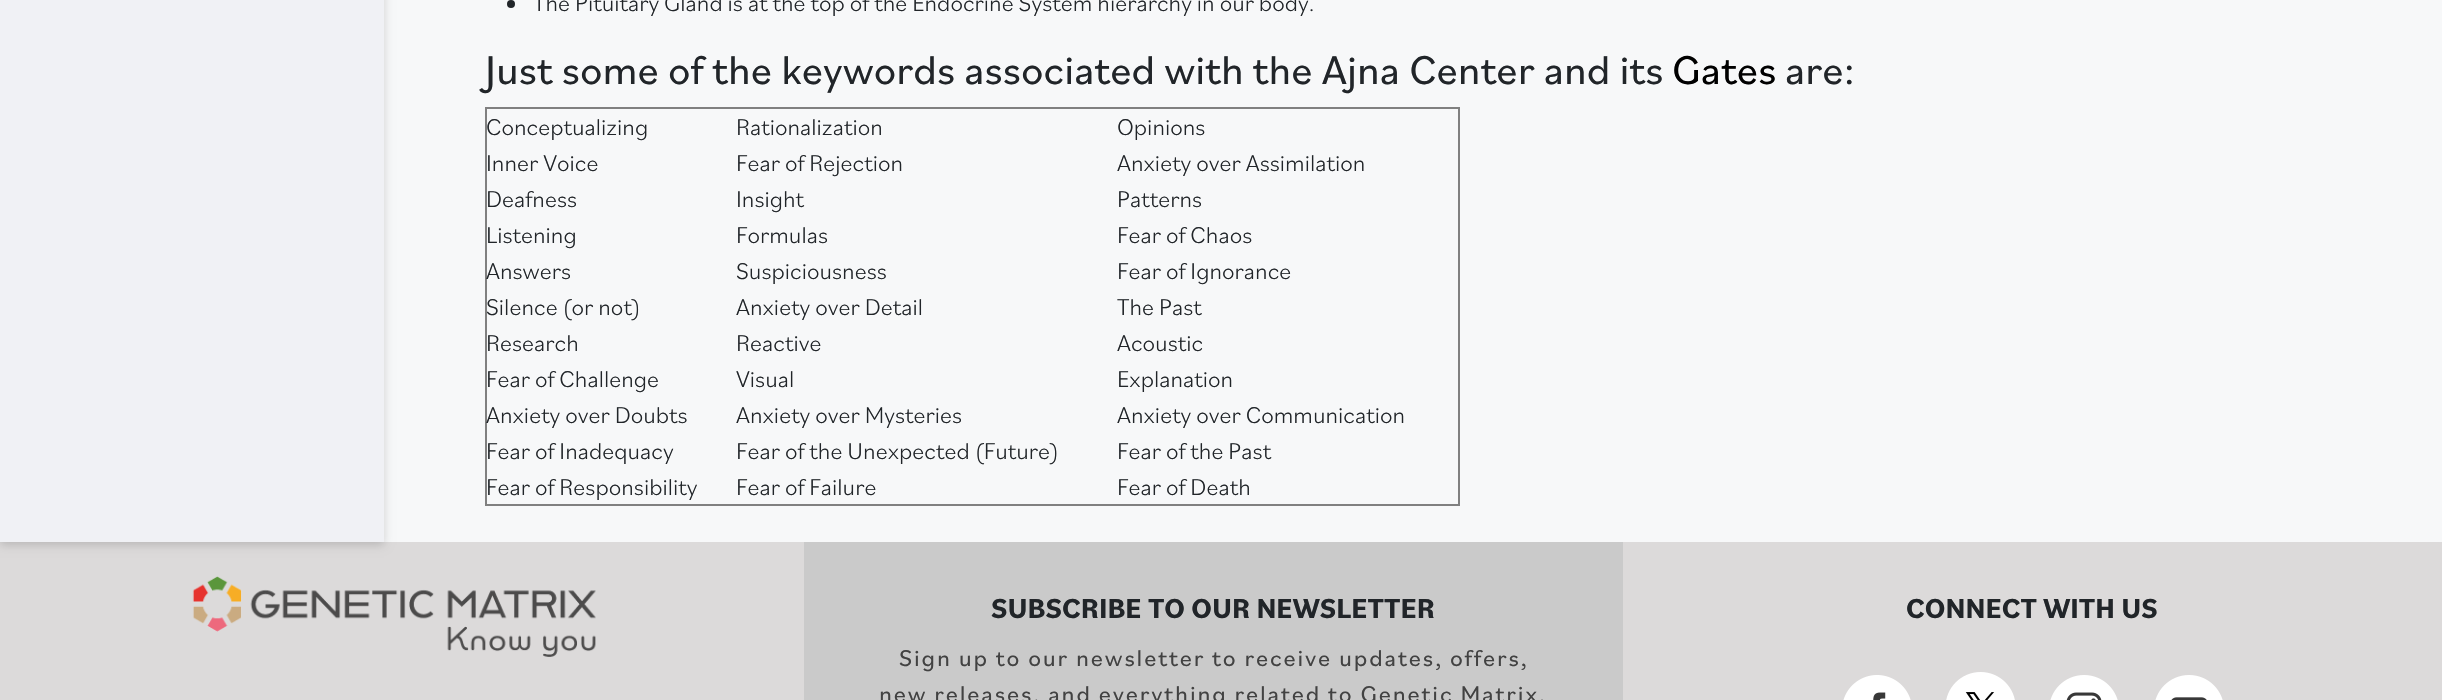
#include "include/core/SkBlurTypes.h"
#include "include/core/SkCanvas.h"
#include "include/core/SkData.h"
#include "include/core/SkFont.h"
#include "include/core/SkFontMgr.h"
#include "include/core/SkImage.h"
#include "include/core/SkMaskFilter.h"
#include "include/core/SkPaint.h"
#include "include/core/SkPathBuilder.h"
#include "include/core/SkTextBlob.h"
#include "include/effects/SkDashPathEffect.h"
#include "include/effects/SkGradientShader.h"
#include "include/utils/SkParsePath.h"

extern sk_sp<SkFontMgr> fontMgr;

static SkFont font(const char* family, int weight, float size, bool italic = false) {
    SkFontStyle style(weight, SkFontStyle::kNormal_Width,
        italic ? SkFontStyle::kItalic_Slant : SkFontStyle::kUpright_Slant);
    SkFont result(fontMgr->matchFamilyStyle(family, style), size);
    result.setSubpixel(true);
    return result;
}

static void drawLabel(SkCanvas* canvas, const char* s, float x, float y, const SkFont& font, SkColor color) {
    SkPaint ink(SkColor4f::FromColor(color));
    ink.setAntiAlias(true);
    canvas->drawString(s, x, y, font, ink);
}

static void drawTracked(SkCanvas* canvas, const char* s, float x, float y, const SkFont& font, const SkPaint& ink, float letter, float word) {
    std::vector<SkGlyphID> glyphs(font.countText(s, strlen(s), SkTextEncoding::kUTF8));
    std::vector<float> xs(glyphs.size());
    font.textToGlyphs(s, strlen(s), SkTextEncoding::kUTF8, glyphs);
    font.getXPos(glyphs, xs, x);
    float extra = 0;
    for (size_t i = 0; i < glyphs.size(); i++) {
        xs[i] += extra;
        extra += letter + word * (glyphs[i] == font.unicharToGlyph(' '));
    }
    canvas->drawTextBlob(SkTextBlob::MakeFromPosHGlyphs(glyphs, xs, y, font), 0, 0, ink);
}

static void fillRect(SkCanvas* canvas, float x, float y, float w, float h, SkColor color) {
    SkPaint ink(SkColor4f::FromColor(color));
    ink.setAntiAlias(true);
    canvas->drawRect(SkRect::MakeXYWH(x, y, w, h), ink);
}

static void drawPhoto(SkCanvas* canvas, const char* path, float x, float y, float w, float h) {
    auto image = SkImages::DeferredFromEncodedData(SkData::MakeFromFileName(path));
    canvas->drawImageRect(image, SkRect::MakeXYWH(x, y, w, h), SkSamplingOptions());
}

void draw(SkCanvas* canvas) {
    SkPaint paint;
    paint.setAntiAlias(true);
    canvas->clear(0xFFDCDADA);
    fillRect(canvas, 384, 0, 2058, 542, 0xFFF7F8F9);
    paint.setColor(0x29000000);
    paint.setMaskFilter(SkMaskFilter::MakeBlur(kNormal_SkBlurStyle, 4.5f));
    canvas->drawRect(SkRect::MakeXYWH(0, -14, 384, 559), paint);
    paint.setMaskFilter(nullptr);
    fillRect(canvas, 0, 0, 384, 542, 0xFFF0F1F5);
    paint.setColor(0xFF212529);
    canvas->drawCircle(511, 4, 4, paint);
    SkFont font1 = font("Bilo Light", 300, 24);
    drawLabel(canvas, "The Pituitary Gland is at the top of the Endocrine System hierarchy in our body.", 533, 11, font1, 0xFF212529);
    SkFont font2 = font("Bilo", 400, 42);
    drawLabel(canvas, "Just some of the keywords associated with the Ajna Center and its", 485, 84, font2, 0xFF212529);
    drawLabel(canvas, "Gates", 1672, 84, font2, 0xFF000000);
    drawLabel(canvas, "are:", 1785, 84, font2, 0xFF212529);
    fillRect(canvas, 485, 107, 975, 2, 0xFF808080);
    fillRect(canvas, 1458, 107, 2, 399, 0xFF808080);
    fillRect(canvas, 485, 504, 975, 2, 0xFF808080);
    fillRect(canvas, 485, 107, 2, 399, 0xFF808080);
    drawLabel(canvas, "Conceptualizing", 486, 135, font1, 0xFF212529);
    drawLabel(canvas, "Rationalization", 736, 135, font1, 0xFF212529);
    drawLabel(canvas, "Opinions", 1117, 135, font1, 0xFF212529);
    drawLabel(canvas, "Inner Voice", 486, 171, font1, 0xFF212529);
    drawLabel(canvas, "Fear of Rejection", 736, 171, font1, 0xFF212529);
    drawLabel(canvas, "Anxiety over Assimilation", 1117, 171, font1, 0xFF212529);
    drawLabel(canvas, "Deafness", 486, 207, font1, 0xFF212529);
    drawLabel(canvas, "Insight", 736, 207, font1, 0xFF212529);
    drawLabel(canvas, "Patterns", 1117, 207, font1, 0xFF212529);
    drawLabel(canvas, "Listening", 486, 243, font1, 0xFF212529);
    drawLabel(canvas, "Formulas", 736, 243, font1, 0xFF212529);
    drawLabel(canvas, "Fear of Chaos", 1117, 243, font1, 0xFF212529);
    drawLabel(canvas, "Answers", 486, 279, font1, 0xFF212529);
    drawLabel(canvas, "Suspiciousness", 736, 279, font1, 0xFF212529);
    drawLabel(canvas, "Fear of Ignorance", 1117, 279, font1, 0xFF212529);
    drawLabel(canvas, "Silence (or not)", 486, 315, font1, 0xFF212529);
    drawLabel(canvas, "Anxiety over Detail", 736, 315, font1, 0xFF212529);
    drawLabel(canvas, "The Past", 1117, 315, font1, 0xFF212529);
    drawLabel(canvas, "Research", 486, 351, font1, 0xFF212529);
    drawLabel(canvas, "Reactive", 736, 351, font1, 0xFF212529);
    drawLabel(canvas, "Acoustic", 1117, 351, font1, 0xFF212529);
    drawLabel(canvas, "Fear of Challenge", 486, 387, font1, 0xFF212529);
    drawLabel(canvas, "Visual", 736, 387, font1, 0xFF212529);
    drawLabel(canvas, "Explanation", 1117, 387, font1, 0xFF212529);
    drawLabel(canvas, "Anxiety over Doubts", 486, 423, font1, 0xFF212529);
    drawLabel(canvas, "Anxiety over Mysteries", 736, 423, font1, 0xFF212529);
    drawLabel(canvas, "Anxiety over Communication", 1117, 423, font1, 0xFF212529);
    drawLabel(canvas, "Fear of Inadequacy", 486, 459, font1, 0xFF212529);
    drawLabel(canvas, "Fear of the Unexpected (Future)", 736, 459, font1, 0xFF212529);
    drawLabel(canvas, "Fear of the Past", 1117, 459, font1, 0xFF212529);
    drawLabel(canvas, "Fear of Responsibility", 486, 495, font1, 0xFF212529);
    drawLabel(canvas, "Fear of Failure", 736, 495, font1, 0xFF212529);
    drawLabel(canvas, "Fear of Death", 1117, 495, font1, 0xFF212529);
    drawPhoto(canvas, "assets/img1.png", 192, 576, 404, 81);
    fillRect(canvas, 804, 542, 819, 158, 0xFFCACACA);
    SkFont font3 = font("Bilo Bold", 700, 28.75f);
    drawLabel(canvas, "SUBSCRIBE TO OUR NEWSLETTER", 991, 618, font3, 0xFF212529);
    SkFont font4 = font("Bilo", 400, 24);
    paint.setColor(0xFF424242);
    drawTracked(canvas, "Sign up to our newsletter to receive updates, offers,", 899, 666, font4, paint, 1.8f, 0);
    drawTracked(canvas, "new releases, and everything related to Genetic Matrix.", 879, 702, font4, paint, 1.8f, 0);
    drawLabel(canvas, "CONNECT WITH US", 1906, 618, font3, 0xFF212529);
    drawPhoto(canvas, "assets/img2.png", 1843, 675, 68, 25);
    drawPhoto(canvas, "assets/img3.png", 1946, 672, 69, 28);
    drawPhoto(canvas, "assets/img4.png", 2050, 675, 68, 25);
    drawPhoto(canvas, "assets/img5.png", 2155, 675, 68, 25);
}
